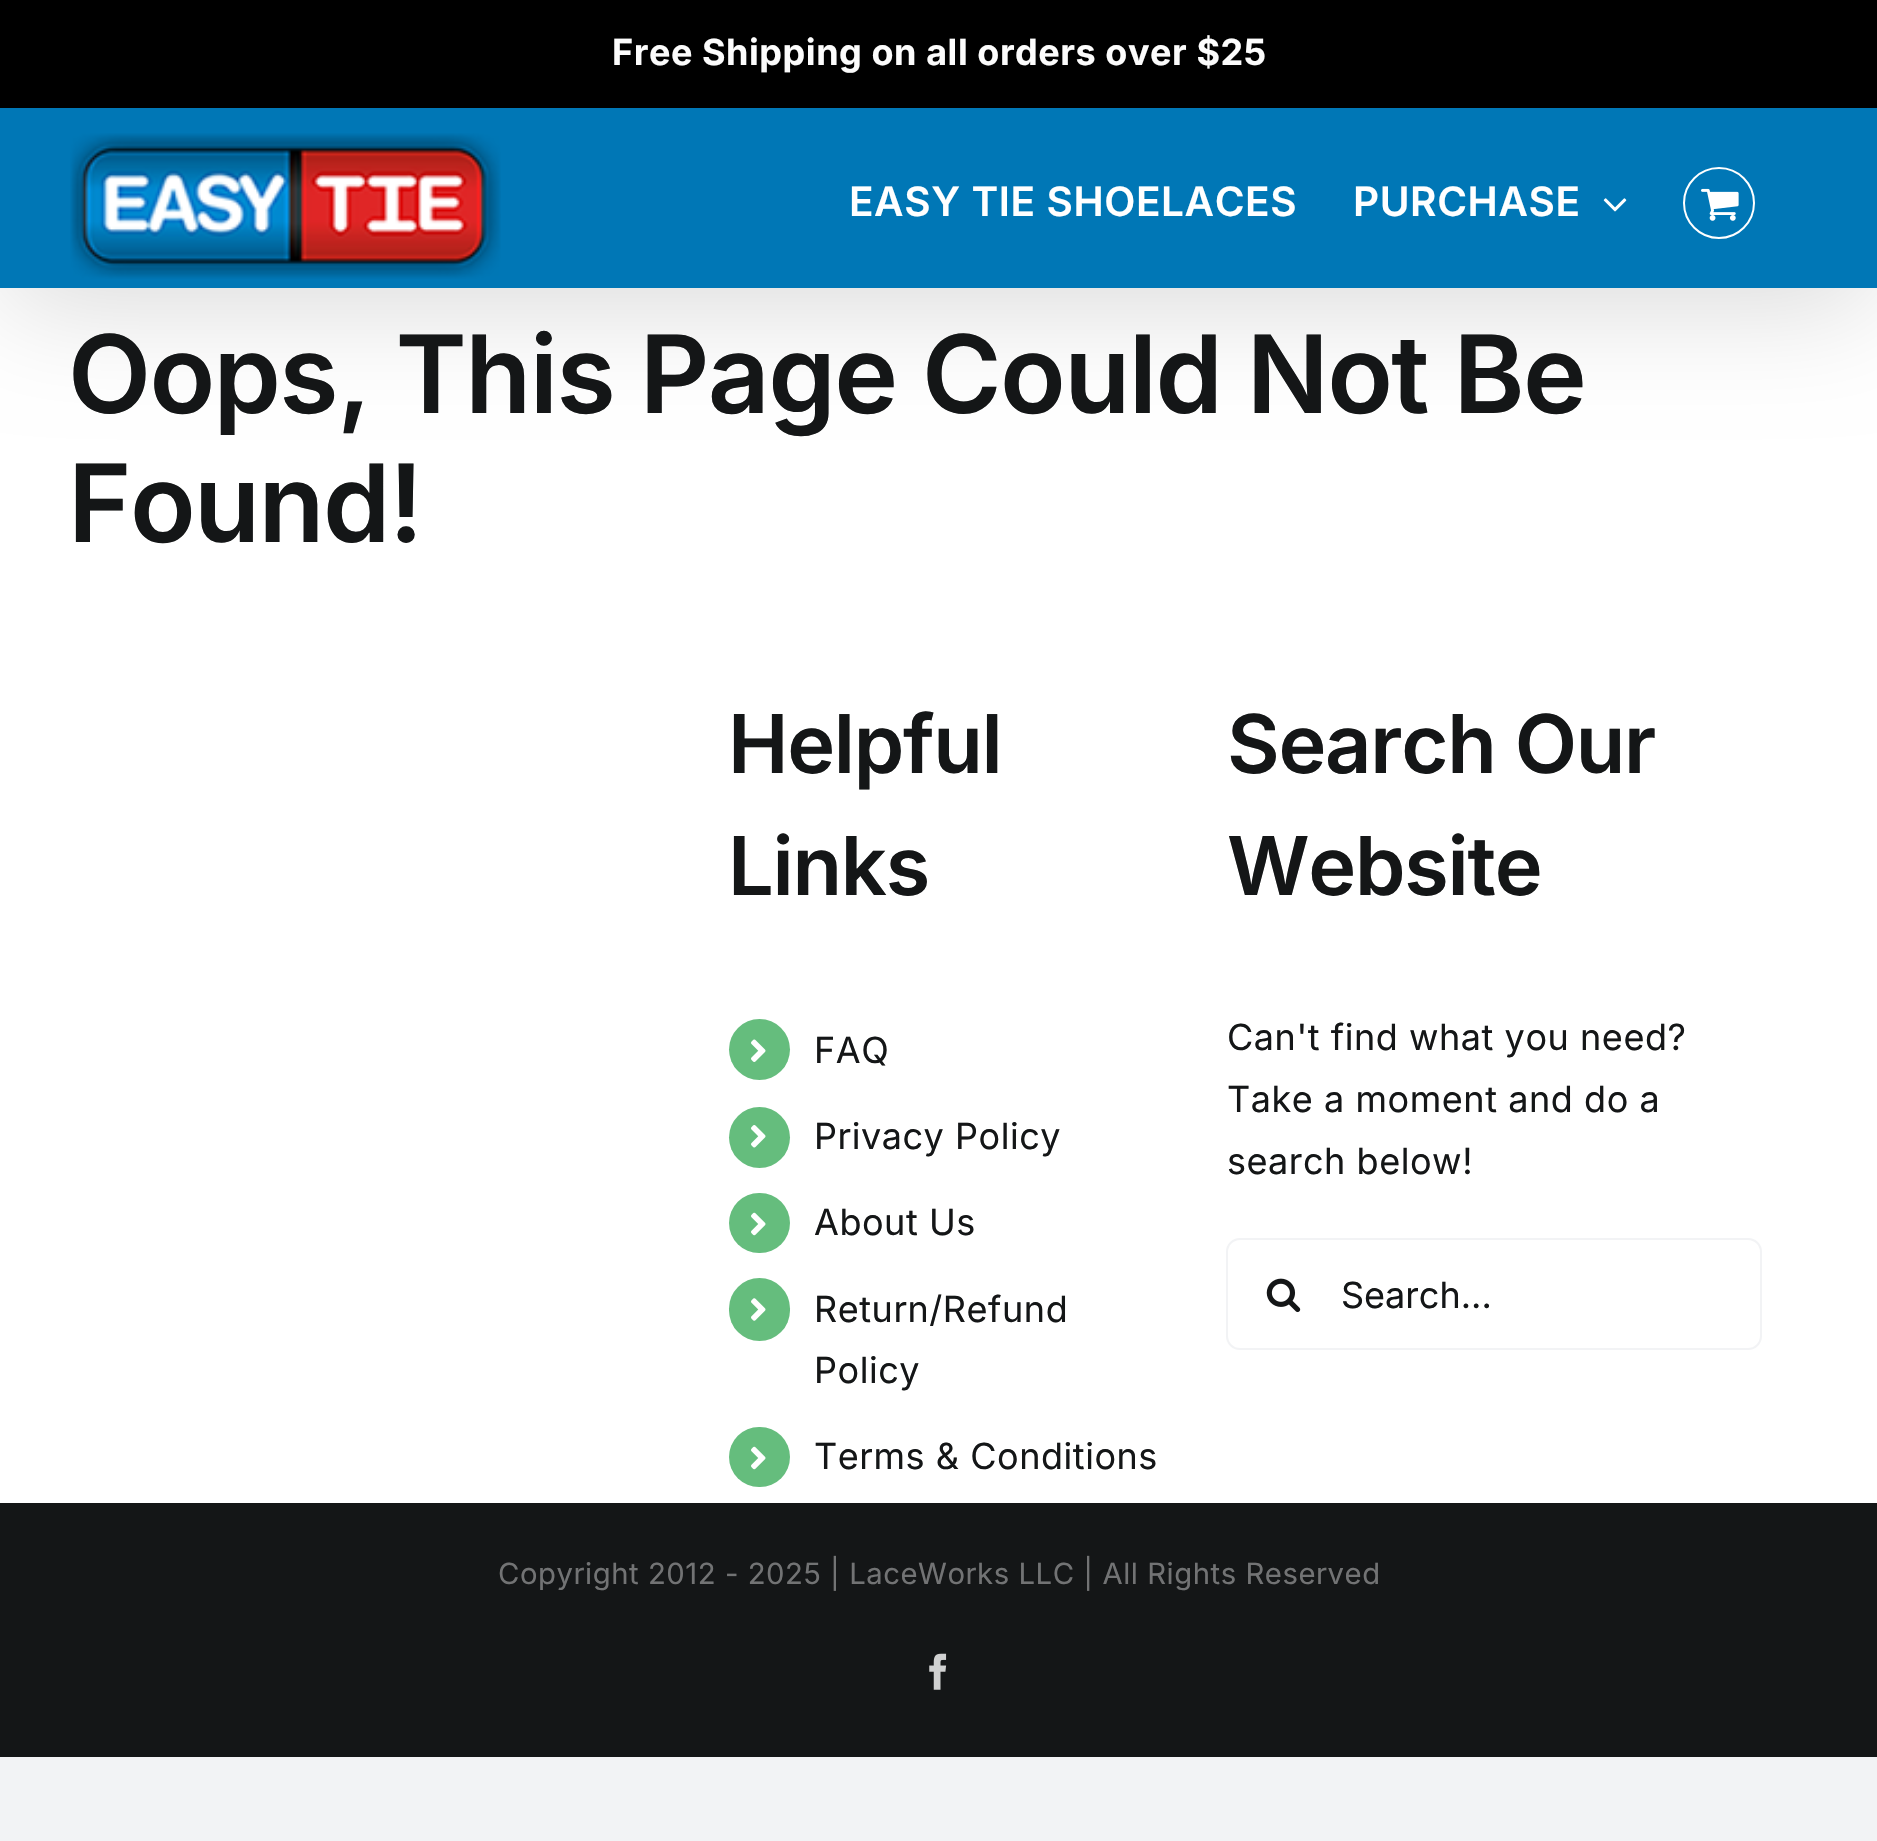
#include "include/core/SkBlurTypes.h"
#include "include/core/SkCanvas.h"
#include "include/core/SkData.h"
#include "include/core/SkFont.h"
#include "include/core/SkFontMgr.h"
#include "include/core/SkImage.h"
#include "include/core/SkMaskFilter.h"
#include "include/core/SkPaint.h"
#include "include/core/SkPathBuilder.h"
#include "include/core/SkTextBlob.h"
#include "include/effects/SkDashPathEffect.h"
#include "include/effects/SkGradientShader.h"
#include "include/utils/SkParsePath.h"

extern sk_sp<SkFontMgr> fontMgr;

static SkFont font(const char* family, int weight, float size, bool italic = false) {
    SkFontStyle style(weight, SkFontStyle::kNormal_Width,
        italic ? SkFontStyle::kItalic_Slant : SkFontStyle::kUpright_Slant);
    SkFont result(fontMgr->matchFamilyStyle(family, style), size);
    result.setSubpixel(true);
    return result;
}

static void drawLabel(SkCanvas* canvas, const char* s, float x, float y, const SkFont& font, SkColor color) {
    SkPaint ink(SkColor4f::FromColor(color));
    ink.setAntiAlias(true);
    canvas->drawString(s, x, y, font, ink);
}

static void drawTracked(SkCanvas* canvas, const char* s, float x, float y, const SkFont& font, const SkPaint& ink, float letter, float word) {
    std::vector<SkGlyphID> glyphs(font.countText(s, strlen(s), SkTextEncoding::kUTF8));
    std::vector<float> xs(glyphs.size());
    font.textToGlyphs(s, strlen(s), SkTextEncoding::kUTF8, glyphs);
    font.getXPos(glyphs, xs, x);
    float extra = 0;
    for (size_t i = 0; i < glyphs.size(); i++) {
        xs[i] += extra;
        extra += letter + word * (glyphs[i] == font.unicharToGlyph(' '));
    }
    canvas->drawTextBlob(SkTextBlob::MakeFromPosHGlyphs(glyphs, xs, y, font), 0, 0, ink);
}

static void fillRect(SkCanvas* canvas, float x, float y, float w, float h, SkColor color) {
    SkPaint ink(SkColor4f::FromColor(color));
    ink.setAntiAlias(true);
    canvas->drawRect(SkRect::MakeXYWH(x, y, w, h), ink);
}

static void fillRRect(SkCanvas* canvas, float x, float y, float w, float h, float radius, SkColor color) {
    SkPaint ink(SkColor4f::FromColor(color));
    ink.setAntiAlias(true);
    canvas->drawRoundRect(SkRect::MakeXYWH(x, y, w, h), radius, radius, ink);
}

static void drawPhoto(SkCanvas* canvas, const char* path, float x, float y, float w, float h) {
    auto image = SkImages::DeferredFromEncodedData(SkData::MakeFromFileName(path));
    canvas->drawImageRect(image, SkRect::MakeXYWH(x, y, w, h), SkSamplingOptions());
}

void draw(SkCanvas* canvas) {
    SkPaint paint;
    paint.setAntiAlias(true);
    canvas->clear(0xFFF2F3F5);
    fillRect(canvas, 0, 0, 1877, 108, 0xFF000000);
    SkFont font1 = font("Inter", 700, 36);
    paint.setColor(0xFFFFFFFF);
    drawTracked(canvas, "Free Shipping on all orders over $25", 612, 65, font1, paint, 0.55f, 0);
    fillRect(canvas, 0, 288, 1877, 1215, 0xFFFFFFFF);
    paint.setColor(0x24000000);
    paint.setMaskFilter(SkMaskFilter::MakeBlur(kNormal_SkBlurStyle, 56));
    canvas->drawRect(SkRect::MakeXYWH(5, 135, 1869, 171), paint);
    paint.setMaskFilter(nullptr);
    fillRect(canvas, 0, 108, 1877, 180, 0xFF0077B6);
    drawPhoto(canvas, "assets/img1.png", 70, 133, 431, 146);
    SkFont font2 = font("Inter", 600, 40.5f);
    paint.setColor(0xFFFFFFFF);
    drawTracked(canvas, "EASY TIE SHOELACES", 849, 216, font2, paint, 0.6f, 0);
    drawTracked(canvas, "PURCHASE", 1353, 216, font2, paint, 0.6f, 0);
    drawPhoto(canvas, "assets/img2.png", 1603, 198, 24, 14);
    paint.setStroke(true);
    paint.setStrokeWidth(2);
    canvas->drawCircle(1719, 203, 35, paint);
    drawPhoto(canvas, "assets/img3.png", 1701, 188, 38, 33);
    SkFont font3 = font("Inter", 600, 108);
    paint.setStroke(false);
    paint.setColor(0xFF141617);
    drawTracked(canvas, "Oops, This Page Could Not Be", 68, 413, font3, paint, -1.6f, 0);
    drawTracked(canvas, "Found!", 68, 542, font3, paint, -1.6f, 0);
    SkFont font4 = font("Inter", 600, 81);
    drawTracked(canvas, "Helpful", 728, 773, font4, paint, -1.25f, 0);
    drawTracked(canvas, "Links", 728, 895, font4, paint, -1.25f, 0);
    paint.setColor(0xFF65BD7D);
    canvas->drawCircle(759.5f, 1049.5f, 30.5f, paint);
    drawPhoto(canvas, "assets/img4.png", 751, 1039, 15, 23);
    SkFont font5 = font("Inter", 400, 36);
    paint.setColor(0xFF141617);
    drawTracked(canvas, "FAQ", 814, 1063, font5, paint, 0.55f, 0);
    paint.setColor(0xFF65BD7D);
    canvas->drawCircle(759.5f, 1137.5f, 30.5f, paint);
    drawPhoto(canvas, "assets/img5.png", 751, 1125, 15, 23);
    paint.setColor(0xFF141617);
    drawTracked(canvas, "Privacy Policy", 814, 1149, font5, paint, 0.55f, 0);
    fillRRect(canvas, 729, 1193, 61, 60, 30, 0xFF65BD7D);
    drawPhoto(canvas, "assets/img6.png", 751, 1212, 15, 24);
    drawTracked(canvas, "About Us", 814, 1235, font5, paint, 0.55f, 0);
    fillRRect(canvas, 729, 1278, 61, 63, 30.5f, 0xFF65BD7D);
    drawPhoto(canvas, "assets/img7.png", 751, 1298, 15, 23);
    drawTracked(canvas, "Return/Refund", 814, 1322, font5, paint, 0.55f, 0);
    drawTracked(canvas, "Policy", 814, 1383, font5, paint, 0.55f, 0);
    fillRRect(canvas, 729, 1427, 61, 60, 30, 0xFF65BD7D);
    drawPhoto(canvas, "assets/img6.png", 751, 1446, 15, 24);
    drawTracked(canvas, "Terms & Conditions", 814, 1469, font5, paint, 0.55f, 0);
    drawTracked(canvas, "Search Our", 1227, 773, font4, paint, -1.25f, 0);
    drawTracked(canvas, "Website", 1227, 895, font4, paint, -1.25f, 0);
    drawTracked(canvas, "Can't find what you need?", 1227, 1050, font5, paint, 0.55f, 0);
    drawTracked(canvas, "Take a moment and do a", 1227, 1112, font5, paint, 0.55f, 0);
    drawTracked(canvas, "search below!", 1227, 1174, font5, paint, 0.55f, 0);
    paint.setStroke(true);
    paint.setColor(0xFFF2F3F5);
    canvas->drawRoundRect(SkRect::MakeXYWH(1227, 1239, 534, 110), 13, 13, paint);
    drawPhoto(canvas, "assets/img8.png", 1266, 1278, 35, 35);
    drawLabel(canvas, "Search...", 1341, 1308, font5, 0xFF141617);
    fillRect(canvas, 0, 1503, 1877, 254, 0xFF141617);
    SkFont font6 = font("Inter", 400, 29.25f);
    paint.setStroke(false);
    paint.setColor(0xFF727374);
    drawTracked(canvas, "Copyright 2012 - 2025 | LaceWorks LLC | All Rights Reserved", 498, 1584, font6, paint, 0.55f, 0);
    drawPhoto(canvas, "assets/img9.png", 929, 1653, 18, 37);
}
